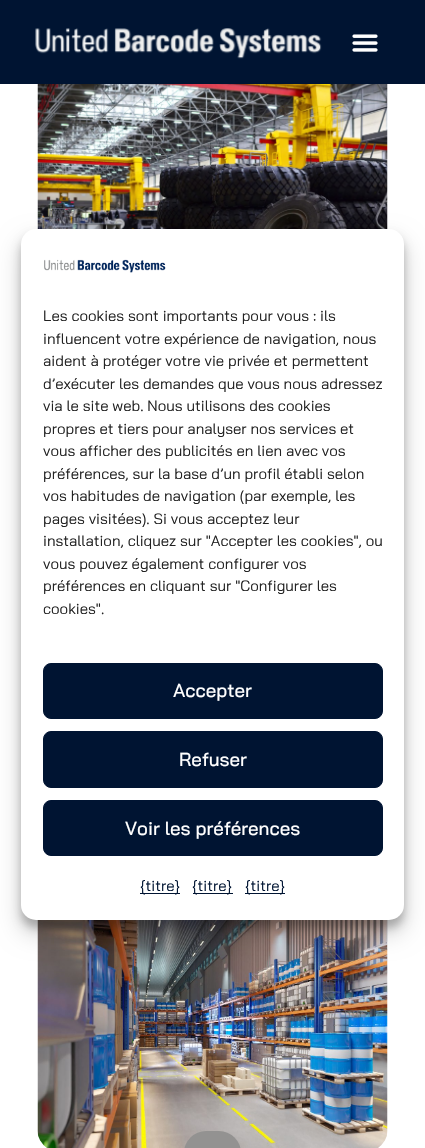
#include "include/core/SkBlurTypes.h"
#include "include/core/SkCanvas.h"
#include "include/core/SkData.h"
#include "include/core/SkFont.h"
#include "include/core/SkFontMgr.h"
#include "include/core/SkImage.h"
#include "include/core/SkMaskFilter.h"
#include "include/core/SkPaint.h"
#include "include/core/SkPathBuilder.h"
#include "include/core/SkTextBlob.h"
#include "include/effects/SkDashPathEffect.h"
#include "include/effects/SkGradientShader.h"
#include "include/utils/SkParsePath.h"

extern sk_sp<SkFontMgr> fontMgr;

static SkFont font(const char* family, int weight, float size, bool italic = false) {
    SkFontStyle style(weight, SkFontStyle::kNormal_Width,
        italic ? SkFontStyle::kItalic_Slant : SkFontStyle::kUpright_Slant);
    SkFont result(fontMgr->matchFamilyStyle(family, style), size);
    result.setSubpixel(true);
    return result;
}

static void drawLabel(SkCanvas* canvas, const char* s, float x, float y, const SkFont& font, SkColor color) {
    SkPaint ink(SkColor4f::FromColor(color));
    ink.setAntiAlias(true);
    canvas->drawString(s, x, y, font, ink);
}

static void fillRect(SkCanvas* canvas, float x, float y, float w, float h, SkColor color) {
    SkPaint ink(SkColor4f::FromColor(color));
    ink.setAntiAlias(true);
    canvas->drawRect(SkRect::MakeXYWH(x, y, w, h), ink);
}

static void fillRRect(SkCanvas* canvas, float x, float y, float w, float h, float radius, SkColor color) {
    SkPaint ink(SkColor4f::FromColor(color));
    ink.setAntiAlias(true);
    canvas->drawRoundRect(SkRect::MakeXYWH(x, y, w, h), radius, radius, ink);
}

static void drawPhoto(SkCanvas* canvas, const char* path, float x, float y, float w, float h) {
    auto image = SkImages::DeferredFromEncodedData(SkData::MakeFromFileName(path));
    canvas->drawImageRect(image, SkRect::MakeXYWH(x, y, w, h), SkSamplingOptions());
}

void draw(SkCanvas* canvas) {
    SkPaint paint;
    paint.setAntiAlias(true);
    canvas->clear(0xFFFFFFFF);
    fillRect(canvas, 0, 0, 425, 84, 0xFF001432);
    drawPhoto(canvas, "assets/img1.png", 35, 28, 287, 31);
    drawPhoto(canvas, "assets/img2.png", 352, 34, 26, 18);
    drawPhoto(canvas, "assets/img3.png", 37, 84, 351, 145);
    drawPhoto(canvas, "assets/img4.png", 37, 920, 351, 228);
    fillRRect(canvas, 184, 1131, 57, 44, 26.5f, 0xFF939291);
    paint.setColor(0x3B000000);
    paint.setMaskFilter(SkMaskFilter::MakeBlur(kNormal_SkBlurStyle, 4));
    canvas->drawRoundRect(SkRect::MakeXYWH(21, 236, 383, 692), 15, 15, paint);
    paint.setMaskFilter(nullptr);
    paint.setColor(0x30000000);
    paint.setMaskFilter(SkMaskFilter::MakeBlur(kNormal_SkBlurStyle, 12.5f));
    canvas->drawRoundRect(SkRect::MakeXYWH(21, 241, 383, 692), 15, 15, paint);
    paint.setMaskFilter(nullptr);
    fillRRect(canvas, 21, 229, 383, 691, 15, 0xFFFFFFFF);
    drawPhoto(canvas, "assets/img5.png", 44, 259, 122, 14);
    SkFont font1 = font("Bai Jamjuree", 400, 15);
    drawLabel(canvas, "Les cookies sont importants pour vous : ils", 43, 321, font1, 0xFF222222);
    drawLabel(canvas, "influencent votre expérience de navigation, nous", 43, 344, font1, 0xFF222222);
    drawLabel(canvas, "aident à protéger votre vie privée et permettent", 43, 366, font1, 0xFF222222);
    drawLabel(canvas, "d’exécuter les demandes que vous nous adressez", 43, 389, font1, 0xFF222222);
    drawLabel(canvas, "via le site web. Nous utilisons des cookies", 43, 411, font1, 0xFF222222);
    drawLabel(canvas, "propres et tiers pour analyser nos services et", 43, 434, font1, 0xFF222222);
    drawLabel(canvas, "vous afficher des publicités en lien avec vos", 43, 456, font1, 0xFF222222);
    drawLabel(canvas, "préférences, sur la base d’un profil établi selon", 43, 479, font1, 0xFF222222);
    drawLabel(canvas, "vos habitudes de navigation (par exemple, les", 43, 501, font1, 0xFF222222);
    drawLabel(canvas, "pages visitées). Si vous acceptez leur", 43, 524, font1, 0xFF222222);
    drawLabel(canvas, "installation, cliquez sur \"Accepter les cookies\", ou", 43, 546, font1, 0xFF222222);
    drawLabel(canvas, "vous pouvez également configurer vos", 43, 569, font1, 0xFF222222);
    drawLabel(canvas, "préférences en cliquant sur \"Configurer les", 43, 591, font1, 0xFF222222);
    drawLabel(canvas, "cookies\".", 43, 614, font1, 0xFF222222);
    paint.setColor(0xFF001432);
    canvas->drawRoundRect(SkRect::MakeXYWH(43.5f, 663.5f, 339, 55), 7.5f, 7.5f, paint);
    paint.setStroke(true);
    paint.setStrokeWidth(1);
    canvas->drawRoundRect(SkRect::MakeXYWH(43.5f, 663.5f, 339, 55), 7.5f, 7.5f, paint);
    SkFont font2 = font("Bai Jamjuree", 500, 18.75f);
    drawLabel(canvas, "Accepter", 173, 697, font2, 0xFFFFFFFF);
    paint.setStroke(false);
    canvas->drawRoundRect(SkRect::MakeXYWH(43.5f, 731.5f, 339, 56), 7.5f, 7.5f, paint);
    paint.setStroke(true);
    canvas->drawRoundRect(SkRect::MakeXYWH(43.5f, 731.5f, 339, 56), 7.5f, 7.5f, paint);
    drawLabel(canvas, "Refuser", 179, 766, font2, 0xFFFFFFFF);
    paint.setStroke(false);
    canvas->drawRoundRect(SkRect::MakeXYWH(43.5f, 800.5f, 339, 55), 7.5f, 7.5f, paint);
    paint.setStroke(true);
    canvas->drawRoundRect(SkRect::MakeXYWH(43.5f, 800.5f, 339, 55), 7.5f, 7.5f, paint);
    drawLabel(canvas, "Voir les préférences", 125, 835, font2, 0xFFFFFFFF);
    fillRect(canvas, 140, 893, 40, 1, 0xFF001432);
    drawLabel(canvas, "{titre}", 140, 891, font1, 0xFF001432);
    fillRect(canvas, 193, 893, 40, 1, 0xFF001432);
    drawLabel(canvas, "{titre}", 192, 891, font1, 0xFF001432);
    fillRect(canvas, 245, 893, 40, 1, 0xFF001432);
    drawLabel(canvas, "{titre}", 245, 891, font1, 0xFF001432);
}
